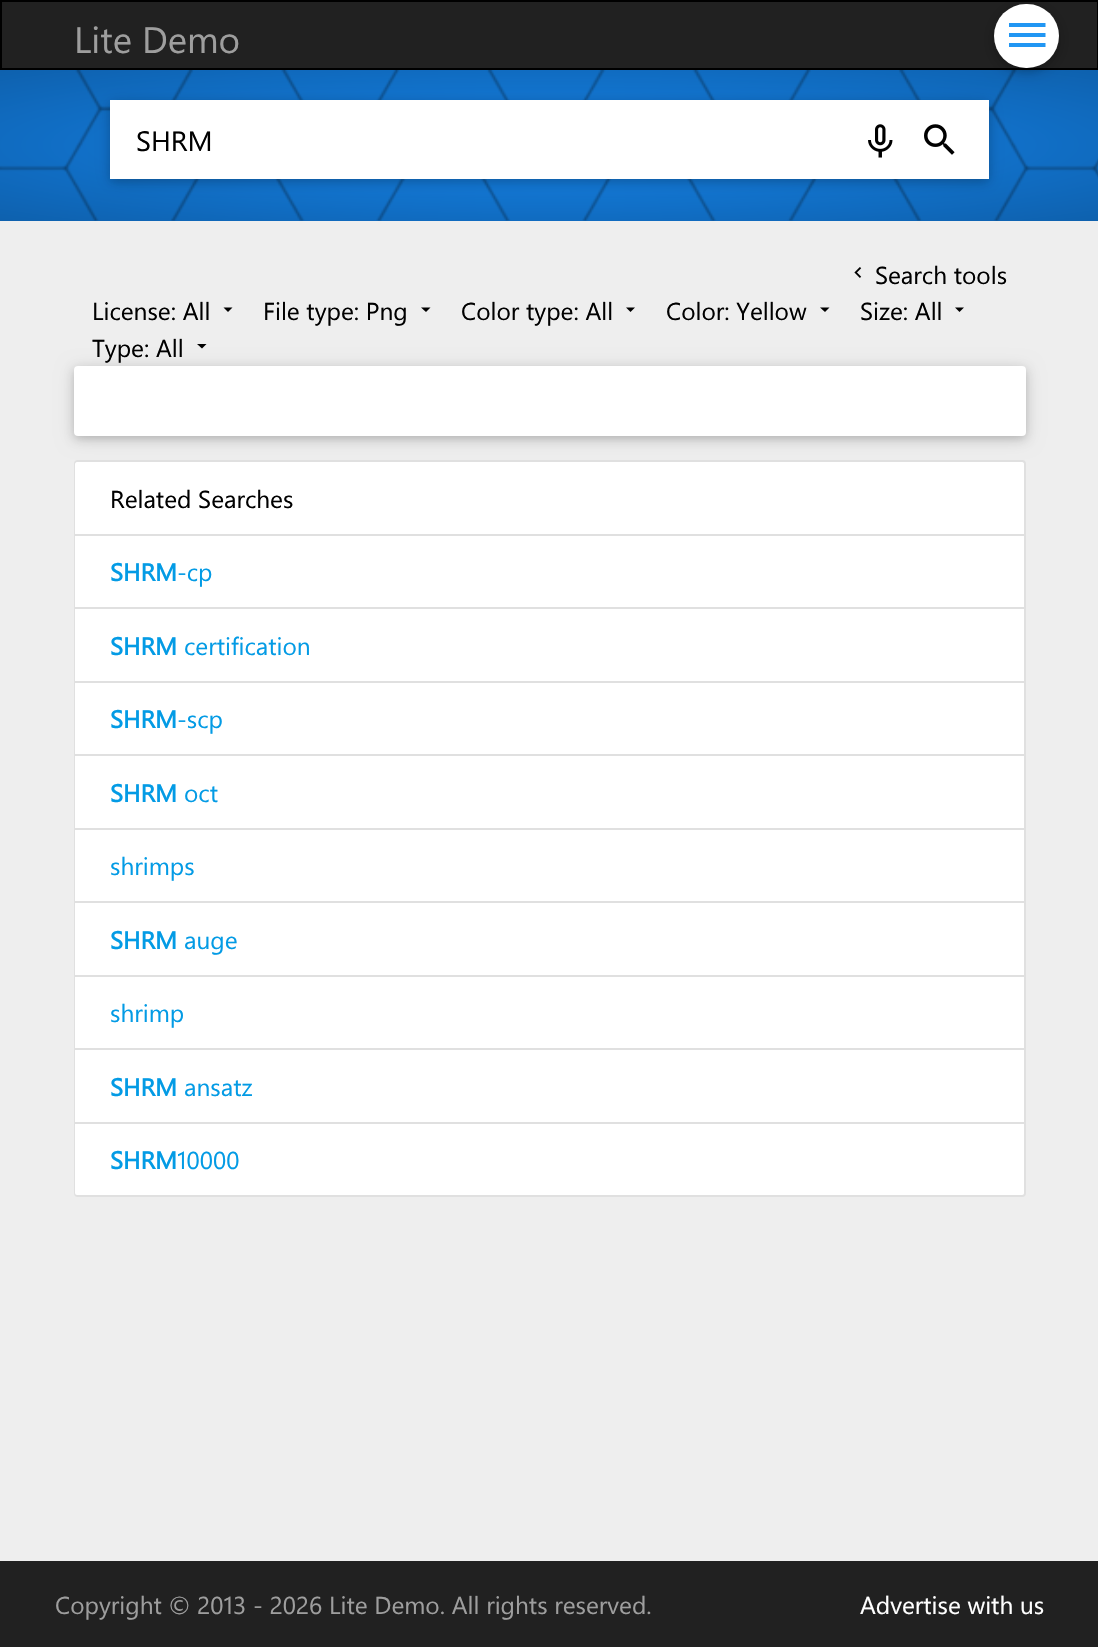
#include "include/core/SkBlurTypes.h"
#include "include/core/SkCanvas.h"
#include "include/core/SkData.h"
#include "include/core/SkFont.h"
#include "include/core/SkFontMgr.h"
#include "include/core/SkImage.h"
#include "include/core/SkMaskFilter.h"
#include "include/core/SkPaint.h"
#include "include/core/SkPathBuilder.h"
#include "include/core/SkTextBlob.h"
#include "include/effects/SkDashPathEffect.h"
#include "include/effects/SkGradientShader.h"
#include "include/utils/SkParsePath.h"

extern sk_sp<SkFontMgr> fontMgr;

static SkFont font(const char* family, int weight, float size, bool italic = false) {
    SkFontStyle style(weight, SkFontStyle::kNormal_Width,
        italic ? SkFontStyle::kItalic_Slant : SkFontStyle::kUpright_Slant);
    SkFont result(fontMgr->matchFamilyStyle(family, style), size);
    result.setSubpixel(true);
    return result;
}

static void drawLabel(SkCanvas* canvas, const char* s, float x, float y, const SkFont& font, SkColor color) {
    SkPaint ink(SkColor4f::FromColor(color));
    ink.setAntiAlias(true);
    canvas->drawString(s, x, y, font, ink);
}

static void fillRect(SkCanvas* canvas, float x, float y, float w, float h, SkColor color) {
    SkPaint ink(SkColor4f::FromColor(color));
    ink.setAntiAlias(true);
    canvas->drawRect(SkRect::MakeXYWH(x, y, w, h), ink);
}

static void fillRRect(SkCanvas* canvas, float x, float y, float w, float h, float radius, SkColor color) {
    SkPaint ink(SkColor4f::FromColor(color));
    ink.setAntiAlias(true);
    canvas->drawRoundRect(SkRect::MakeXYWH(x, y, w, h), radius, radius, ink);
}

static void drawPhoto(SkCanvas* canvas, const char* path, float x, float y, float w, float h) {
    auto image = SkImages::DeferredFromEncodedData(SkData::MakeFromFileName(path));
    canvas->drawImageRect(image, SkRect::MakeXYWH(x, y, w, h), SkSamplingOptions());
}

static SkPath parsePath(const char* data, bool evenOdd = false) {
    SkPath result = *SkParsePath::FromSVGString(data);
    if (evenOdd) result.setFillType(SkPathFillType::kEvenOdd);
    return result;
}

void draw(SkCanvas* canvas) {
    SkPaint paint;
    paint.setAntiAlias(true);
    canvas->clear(0xFFEEEEEE);
    paint.setColor(0xFF212121);
    canvas->drawRect(SkRect::MakeXYWH(1, 1, 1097, 68), paint);
    paint.setStroke(true);
    paint.setStrokeWidth(2);
    paint.setColor(0xFF000000);
    canvas->drawRect(SkRect::MakeXYWH(1, 1, 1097, 68), paint);
    SkFont font1 = font("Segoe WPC", 400, 36.75f);
    drawLabel(canvas, "Lite Demo", 74, 53, font1, 0xFF9E9E9E);
    paint.setStroke(false);
    {
        const SkColor colors[] = {0xFF1585ED, 0xFF0E61AE};
        const float stops[] = {0, 1};
        SkMatrix m = SkMatrix::Translate(550, 145).preScale(777, 106);
        paint.setShader(SkGradientShader::MakeRadial({0, 0}, 1, colors, stops, 2, SkTileMode::kClamp, 0, &m));
        paint.setAlpha(255);
    }
    canvas->drawRect(SkRect::MakeXYWH(0, 70, 1098, 151), paint);
    drawPhoto(canvas, "assets/img1.png", 0, 70, 1098, 151);
    paint.setShader(nullptr);
    paint.setColor(0x1F000000);
    paint.setMaskFilter(SkMaskFilter::MakeBlur(kNormal_SkBlurStyle, 9));
    canvas->drawRoundRect(SkRect::MakeXYWH(994, 7, 65, 65), 32.5f, 32.5f, paint);
    paint.setMaskFilter(nullptr);
    paint.setColor(0x29000000);
    paint.setMaskFilter(SkMaskFilter::MakeBlur(kNormal_SkBlurStyle, 4.5f));
    canvas->drawRoundRect(SkRect::MakeXYWH(994, 7, 65, 65), 32.5f, 32.5f, paint);
    paint.setMaskFilter(nullptr);
    fillRRect(canvas, 994, 4, 65, 64, 32, 0xFFFFFFFF);
    paint.setColor(0xFF2196F3);
    canvas->drawPath(parsePath("M1009 23H1045.5V27H1009ZM1009 37V33H1045.5V37ZM1009 47V43H1045.5V47Z"), paint);
    paint.setColor(0x1F000000);
    paint.setMaskFilter(SkMaskFilter::MakeBlur(kNormal_SkBlurStyle, 9));
    canvas->drawRoundRect(SkRect::MakeXYWH(110, 103, 879, 79), 4, 4, paint);
    paint.setMaskFilter(nullptr);
    paint.setColor(0x29000000);
    paint.setMaskFilter(SkMaskFilter::MakeBlur(kNormal_SkBlurStyle, 4.5f));
    canvas->drawRoundRect(SkRect::MakeXYWH(110, 103, 879, 79), 4, 4, paint);
    paint.setMaskFilter(nullptr);
    fillRect(canvas, 110, 100, 879, 79, 0xFFFFFFFF);
    SkFont font2 = font("Segoe WPC", 400, 28);
    drawLabel(canvas, "SHRM", 136, 151, font2, 0xFF000000);
    drawPhoto(canvas, "assets/img2.png", 868, 124, 25, 34);
    drawPhoto(canvas, "assets/img3.png", 924, 124, 31, 31);
    drawPhoto(canvas, "assets/img4.png", 854, 267, 8, 11);
    SkFont font3 = font("Segoe WPC", 400, 24.5f);
    drawLabel(canvas, "Search tools", 875, 284, font3, 0xFF000000);
    drawLabel(canvas, "License: All", 92, 320, font3, 0xFF000000);
    paint.setColor(0xFF000000);
    canvas->drawPath(parsePath("M223.5 307.5H232.5L228 312Z"), paint);
    drawLabel(canvas, "File type: Png", 263, 320, font3, 0xFF000000);
    canvas->drawPath(parsePath("M421 307.5H430.5L426 312Z"), paint);
    drawLabel(canvas, "Color type: All", 461, 320, font3, 0xFF000000);
    canvas->drawPath(parsePath("M626 307.5H635L630.5 312Z"), paint);
    drawLabel(canvas, "Color: Yellow", 666, 320, font3, 0xFF000000);
    canvas->drawPath(parsePath("M820 307.5H829.5L825 312Z"), paint);
    drawLabel(canvas, "Size: All", 860, 320, font3, 0xFF000000);
    canvas->drawPath(parsePath("M955 307.5H964L959.5 312Z"), paint);
    drawLabel(canvas, "Type: All", 92, 357, font3, 0xFF000000);
    canvas->drawPath(parsePath("M197 344H206.5L202 348.5Z"), paint);
    paint.setColor(0x1F000000);
    paint.setMaskFilter(SkMaskFilter::MakeBlur(kNormal_SkBlurStyle, 9));
    canvas->drawRoundRect(SkRect::MakeXYWH(74, 369, 952, 70), 4, 4, paint);
    paint.setMaskFilter(nullptr);
    paint.setColor(0x29000000);
    paint.setMaskFilter(SkMaskFilter::MakeBlur(kNormal_SkBlurStyle, 4.5f));
    canvas->drawRoundRect(SkRect::MakeXYWH(74, 369, 952, 70), 4, 4, paint);
    paint.setMaskFilter(nullptr);
    fillRRect(canvas, 74, 366, 952, 70, 4, 0xFFFFFFFF);
    paint.setStroke(true);
    paint.setColor(0xFFE0E0E0);
    canvas->drawRoundRect(SkRect::MakeXYWH(75, 461, 950, 735), 3, 3, paint);
    paint.setStroke(false);
    paint.setColor(0xFFFFFFFF);
    canvas->drawPath(parsePath("M77 462H1022C1023 462 1024 463 1024 464V536H75V464C75 463 76 462 77 462Z"), paint);
    fillRect(canvas, 75, 534, 949, 2, 0xFFE0E0E0);
    drawLabel(canvas, "Related Searches", 110, 508, font3, 0xFF000000);
    fillRect(canvas, 75, 536, 949, 71, 0xFFFFFFFF);
    fillRect(canvas, 75, 607, 949, 2, 0xFFE0E0E0);
    SkFont font4 = font("Segoe WPC", 700, 24.5f);
    drawLabel(canvas, "SHRM", 110, 581, font4, 0xFF039BE5);
    drawLabel(canvas, "-cp", 177, 581, font3, 0xFF039BE5);
    fillRect(canvas, 75, 609, 949, 72, 0xFFFFFFFF);
    fillRect(canvas, 75, 681, 949, 2, 0xFFE0E0E0);
    drawLabel(canvas, "SHRM", 110, 655, font4, 0xFF039BE5);
    drawLabel(canvas, "certification", 184, 655, font3, 0xFF039BE5);
    fillRect(canvas, 75, 683, 949, 71, 0xFFFFFFFF);
    fillRect(canvas, 75, 754, 949, 2, 0xFFE0E0E0);
    drawLabel(canvas, "SHRM", 110, 728, font4, 0xFF039BE5);
    drawLabel(canvas, "-scp", 177, 728, font3, 0xFF039BE5);
    fillRect(canvas, 75, 756, 949, 72, 0xFFFFFFFF);
    fillRect(canvas, 75, 828, 949, 2, 0xFFE0E0E0);
    drawLabel(canvas, "SHRM", 110, 802, font4, 0xFF039BE5);
    drawLabel(canvas, "oct", 184, 802, font3, 0xFF039BE5);
    fillRect(canvas, 75, 830, 949, 71, 0xFFFFFFFF);
    fillRect(canvas, 75, 901, 949, 2, 0xFFE0E0E0);
    drawLabel(canvas, "shrimps", 110, 875, font3, 0xFF039BE5);
    fillRect(canvas, 75, 903, 949, 72, 0xFFFFFFFF);
    fillRect(canvas, 75, 975, 949, 2, 0xFFE0E0E0);
    drawLabel(canvas, "SHRM", 110, 949, font4, 0xFF039BE5);
    drawLabel(canvas, "auge", 184, 949, font3, 0xFF039BE5);
    fillRect(canvas, 75, 977, 949, 71, 0xFFFFFFFF);
    fillRect(canvas, 75, 1048, 949, 2, 0xFFE0E0E0);
    drawLabel(canvas, "shrimp", 110, 1022, font3, 0xFF039BE5);
    fillRect(canvas, 75, 1050, 949, 72, 0xFFFFFFFF);
    fillRect(canvas, 75, 1122, 949, 2, 0xFFE0E0E0);
    drawLabel(canvas, "SHRM", 110, 1096, font4, 0xFF039BE5);
    drawLabel(canvas, "ansatz", 184, 1096, font3, 0xFF039BE5);
    canvas->drawPath(parsePath("M75 1124H1024V1193C1024 1194 1023 1195 1022 1195H77C76 1195 75 1194 75 1193Z"), paint);
    drawLabel(canvas, "SHRM", 110, 1169, font4, 0xFF039BE5);
    drawLabel(canvas, "10000", 177, 1169, font3, 0xFF039BE5);
    fillRect(canvas, 0, 1561, 1098, 86, 0xFF212121);
    drawLabel(canvas, "Copyright © 2013 - 2026 Lite Demo. All rights reserved.", 55, 1614, font3, 0xFF9E9E9E);
    drawLabel(canvas, "Advertise with us", 860, 1614, font3, 0xFFFFFFFF);
}
